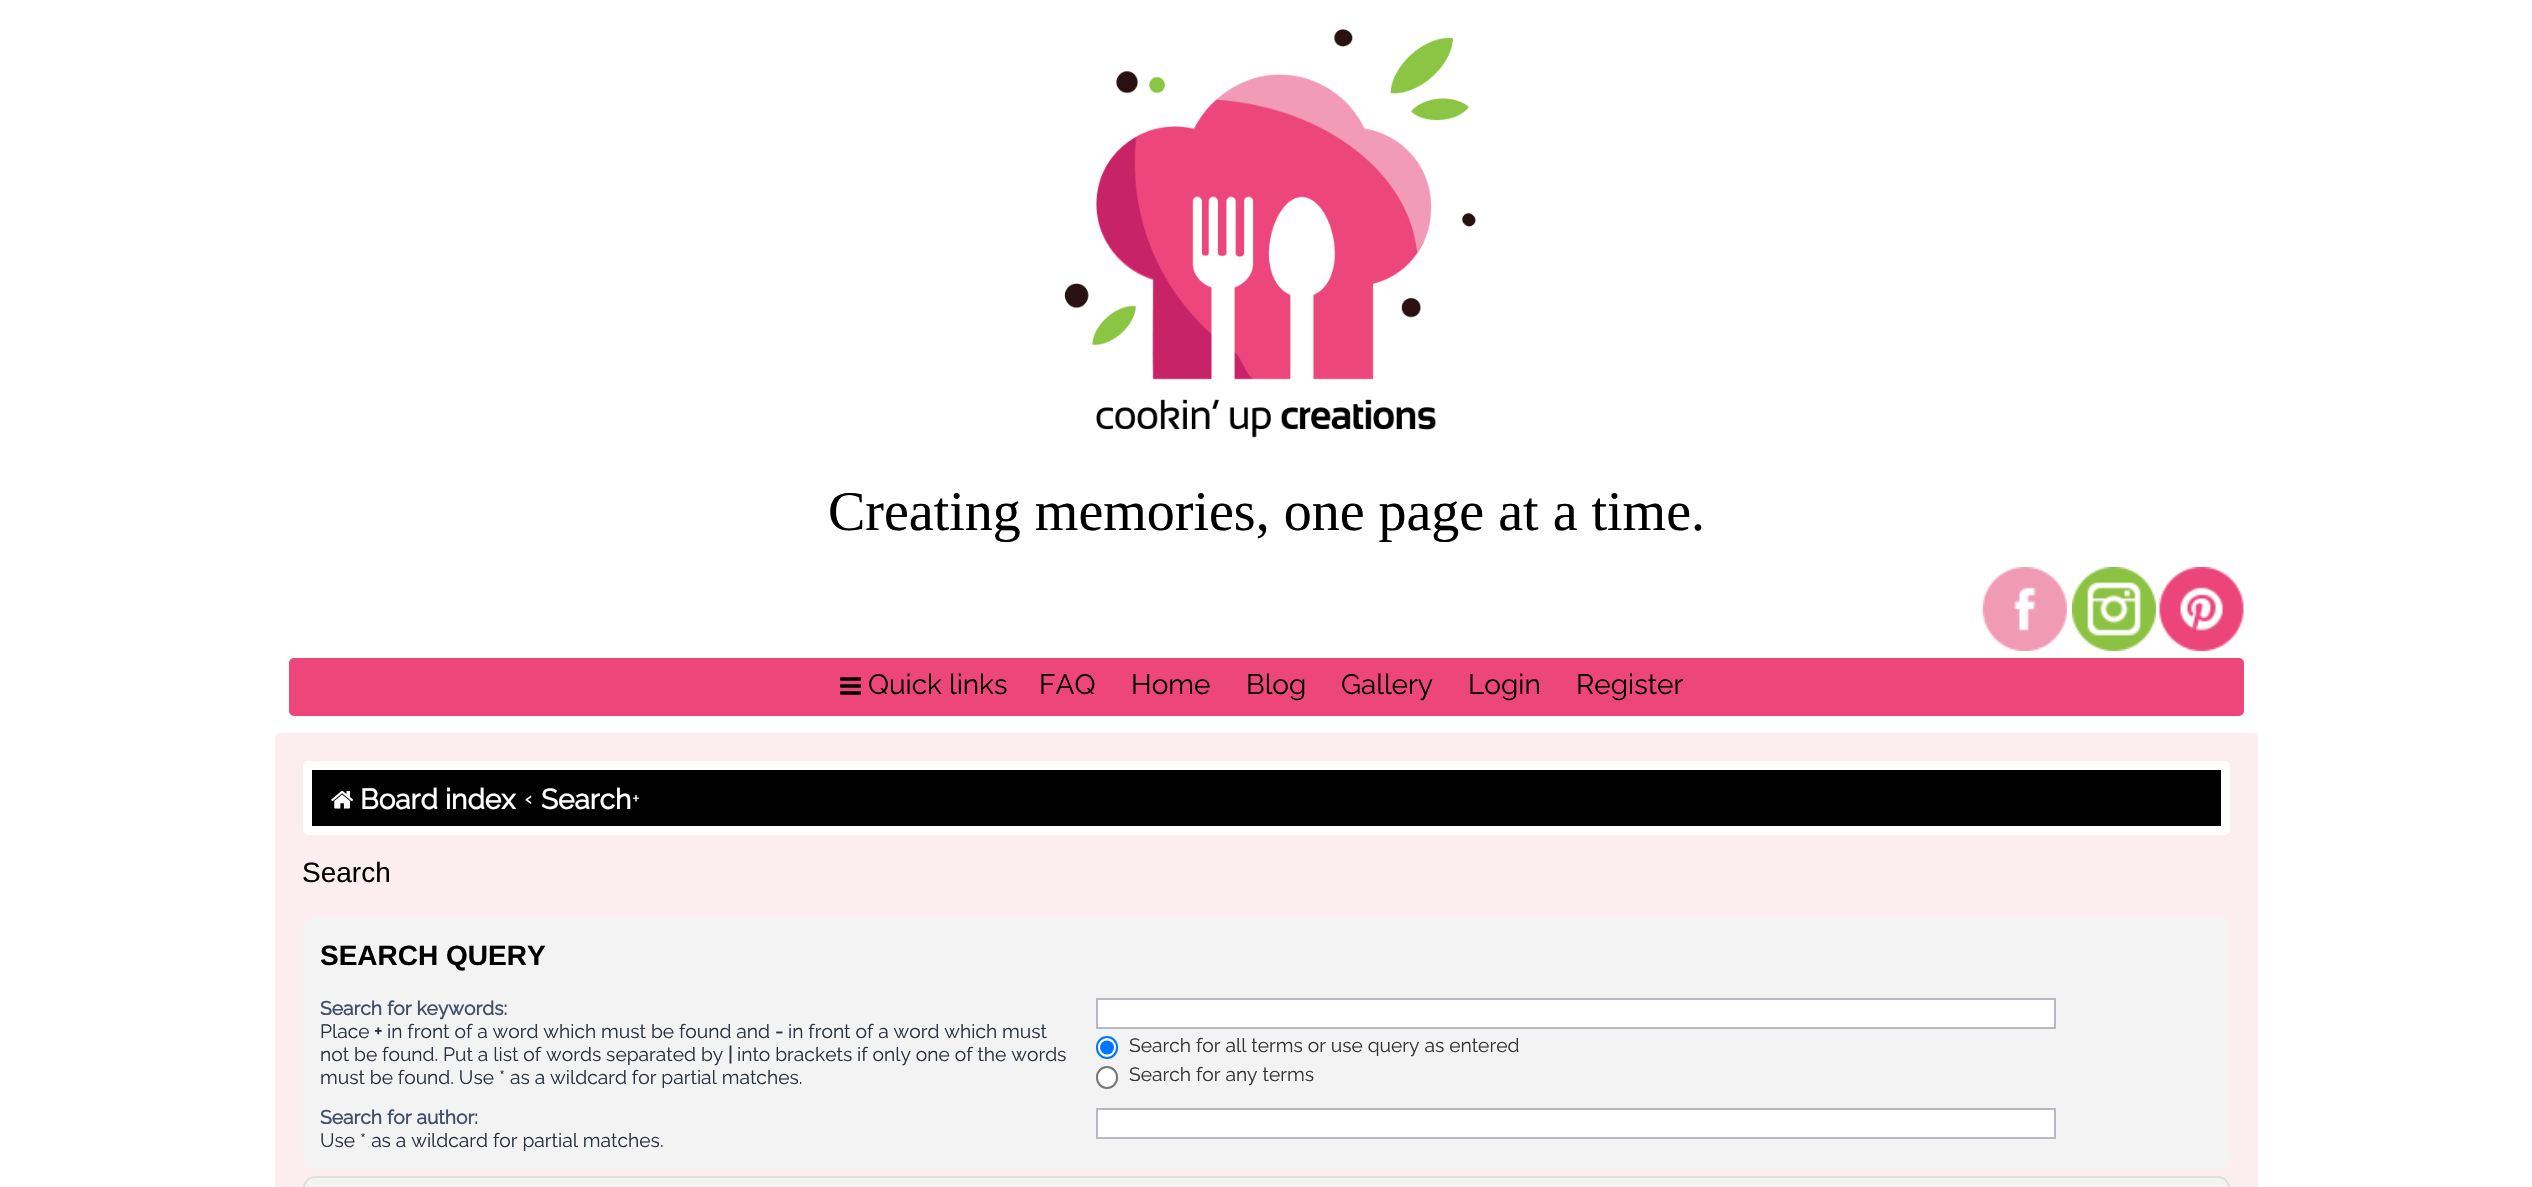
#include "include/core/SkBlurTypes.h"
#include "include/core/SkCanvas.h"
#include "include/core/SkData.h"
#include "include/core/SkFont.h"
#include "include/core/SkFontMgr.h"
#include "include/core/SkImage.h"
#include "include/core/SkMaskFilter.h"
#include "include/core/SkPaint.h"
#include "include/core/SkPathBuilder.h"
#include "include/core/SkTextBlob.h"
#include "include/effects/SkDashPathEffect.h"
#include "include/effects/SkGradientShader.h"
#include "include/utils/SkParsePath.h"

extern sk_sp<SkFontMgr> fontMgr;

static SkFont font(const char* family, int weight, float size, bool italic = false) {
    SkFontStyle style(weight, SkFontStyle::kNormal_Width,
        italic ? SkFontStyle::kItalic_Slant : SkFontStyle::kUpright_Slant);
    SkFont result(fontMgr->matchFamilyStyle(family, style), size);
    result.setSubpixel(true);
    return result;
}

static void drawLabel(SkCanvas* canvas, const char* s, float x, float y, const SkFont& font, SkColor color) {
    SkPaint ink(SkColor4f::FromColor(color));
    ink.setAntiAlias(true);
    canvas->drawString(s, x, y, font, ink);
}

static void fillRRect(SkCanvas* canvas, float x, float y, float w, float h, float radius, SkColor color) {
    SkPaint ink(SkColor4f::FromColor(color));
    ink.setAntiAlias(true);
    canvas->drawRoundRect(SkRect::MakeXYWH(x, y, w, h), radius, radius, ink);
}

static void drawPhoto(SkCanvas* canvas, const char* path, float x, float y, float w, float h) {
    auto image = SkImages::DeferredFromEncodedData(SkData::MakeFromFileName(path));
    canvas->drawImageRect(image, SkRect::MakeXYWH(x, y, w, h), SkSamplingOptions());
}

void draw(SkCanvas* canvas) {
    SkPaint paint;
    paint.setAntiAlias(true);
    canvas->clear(0xFFFFFFFF);
    drawPhoto(canvas, "assets/img1.png", 1064, 29, 412, 409);
    SkFont font1 = font("Liberation Serif", 400, 56);
    drawLabel(canvas, "Creating memories, one page at a time.", 828, 530, font1, 0xFF000000);
    drawPhoto(canvas, "assets/img2.png", 1982, 567, 85, 84);
    drawPhoto(canvas, "assets/img3.png", 2072, 567, 84, 84);
    drawPhoto(canvas, "assets/img4.png", 2159, 567, 85, 84);
    fillRRect(canvas, 289, 658, 1955, 58, 5, 0xFFEC467B);
    drawPhoto(canvas, "assets/img5.png", 840, 677, 21, 18);
    SkFont font2 = font("Raleway", 100, 28);
    drawLabel(canvas, "Quick links", 868, 694, font2, 0xFF000000);
    drawLabel(canvas, "FAQ", 1039, 694, font2, 0xFF000000);
    drawLabel(canvas, "Home", 1131, 694, font2, 0xFF000000);
    drawLabel(canvas, "Blog", 1246, 694, font2, 0xFF000000);
    drawLabel(canvas, "Gallery", 1341, 694, font2, 0xFF000000);
    drawLabel(canvas, "Login", 1468, 694, font2, 0xFF000000);
    drawLabel(canvas, "Register", 1576, 694, font2, 0xFF000000);
    fillRRect(canvas, 275, 733, 1983, 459, 5, 0xFFFCEDF1);
    paint.setColor(0xFF000000);
    canvas->drawRoundRect(SkRect::MakeXYWH(307.5f, 765.5f, 1918, 65), 0.5f, 0.5f, paint);
    paint.setStroke(true);
    paint.setStrokeWidth(9);
    paint.setColor(0xFFFFFFFF);
    canvas->drawRoundRect(SkRect::MakeXYWH(307.5f, 765.5f, 1918, 65), 0.5f, 0.5f, paint);
    drawPhoto(canvas, "assets/img6.png", 331, 791, 23, 18);
    SkFont font3 = font("Raleway", 700, 28);
    drawLabel(canvas, "Board index", 360, 809, font3, 0xFFFFFFFF);
    SkFont font4 = font("Raleway", 700, 19.25f);
    drawLabel(canvas, "‹", 525, 805, font4, 0xFFFFFFFF);
    drawLabel(canvas, "Search", 541, 809, font3, 0xFFFFFFFF);
    SkFont font5 = font("Raleway", 100, 19.25f);
    drawLabel(canvas, "+", 632, 805, font5, 0xFFFFFFFF);
    SkFont font6 = font("Liberation Sans", 400, 28);
    drawLabel(canvas, "Search", 302, 882, font6, 0xFF000000);
    fillRRect(canvas, 303, 917, 1927, 252, 12, 0xFFF3F3F3);
    SkFont font7 = font("Liberation Sans", 700, 28);
    drawLabel(canvas, "SEARCH QUERY", 320, 965, font7, 0xFF000000);
    drawLabel(canvas, "Search for keywords:", 320, 1015, font4, 0xFF425067);
    drawLabel(canvas, "Place", 320, 1038, font5, 0xFF28313F);
    drawLabel(canvas, "+", 374, 1038, font4, 0xFF28313F);
    drawLabel(canvas, "in front of a word which must be found and", 387, 1038, font5, 0xFF28313F);
    drawLabel(canvas, "-", 775, 1038, font4, 0xFF28313F);
    drawLabel(canvas, "in front of a word which must", 788, 1038, font5, 0xFF28313F);
    drawLabel(canvas, "not be found. Put a list of words separated by", 320, 1061, font5, 0xFF28313F);
    drawLabel(canvas, "|", 728, 1061, font4, 0xFF28313F);
    drawLabel(canvas, "into brackets if only one of the words", 737, 1061, font5, 0xFF28313F);
    drawLabel(canvas, "must be found. Use * as a wildcard for partial matches.", 320, 1084, font5, 0xFF28313F);
    paint.setStroke(false);
    canvas->drawRect(SkRect::MakeXYWH(1097, 999, 958, 29), paint);
    paint.setStroke(true);
    paint.setStrokeWidth(2);
    paint.setColor(0xFFB4BAC0);
    canvas->drawRect(SkRect::MakeXYWH(1097, 999, 958, 29), paint);
    paint.setStroke(false);
    paint.setColor(0xFFFFFFFF);
    canvas->drawRoundRect(SkRect::MakeXYWH(1097, 1037, 20, 21), 10, 10, paint);
    paint.setStroke(true);
    paint.setColor(0xFF0075FF);
    canvas->drawRoundRect(SkRect::MakeXYWH(1097, 1037, 20, 21), 10, 10, paint);
    paint.setStroke(false);
    canvas->drawCircle(1107, 1047.5f, 7, paint);
    drawLabel(canvas, "Search for all terms or use query as entered", 1129, 1052, font5, 0xFF333333);
    paint.setColor(0xFFFFFFFF);
    canvas->drawRoundRect(SkRect::MakeXYWH(1097, 1067, 20, 21), 10, 10, paint);
    paint.setStroke(true);
    paint.setColor(0xFF767676);
    canvas->drawRoundRect(SkRect::MakeXYWH(1097, 1067, 20, 21), 10, 10, paint);
    drawLabel(canvas, "Search for any terms", 1129, 1081, font5, 0xFF333333);
    drawLabel(canvas, "Search for author:", 320, 1124, font4, 0xFF425067);
    drawLabel(canvas, "Use * as a wildcard for partial matches.", 320, 1147, font5, 0xFF28313F);
    paint.setStroke(false);
    paint.setColor(0xFFFFFFFF);
    canvas->drawRect(SkRect::MakeXYWH(1097, 1109, 958, 29), paint);
    paint.setStroke(true);
    paint.setColor(0xFFB4BAC0);
    canvas->drawRect(SkRect::MakeXYWH(1097, 1109, 958, 29), paint);
    paint.setStroke(false);
    paint.setColor(0xFFF3F3F3);
    canvas->drawRoundRect(SkRect::MakeXYWH(304, 1177, 1925, 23), 11, 11, paint);
    paint.setStroke(true);
    paint.setColor(0xFFDFDFDF);
    canvas->drawRoundRect(SkRect::MakeXYWH(304, 1177, 1925, 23), 11, 11, paint);
}
